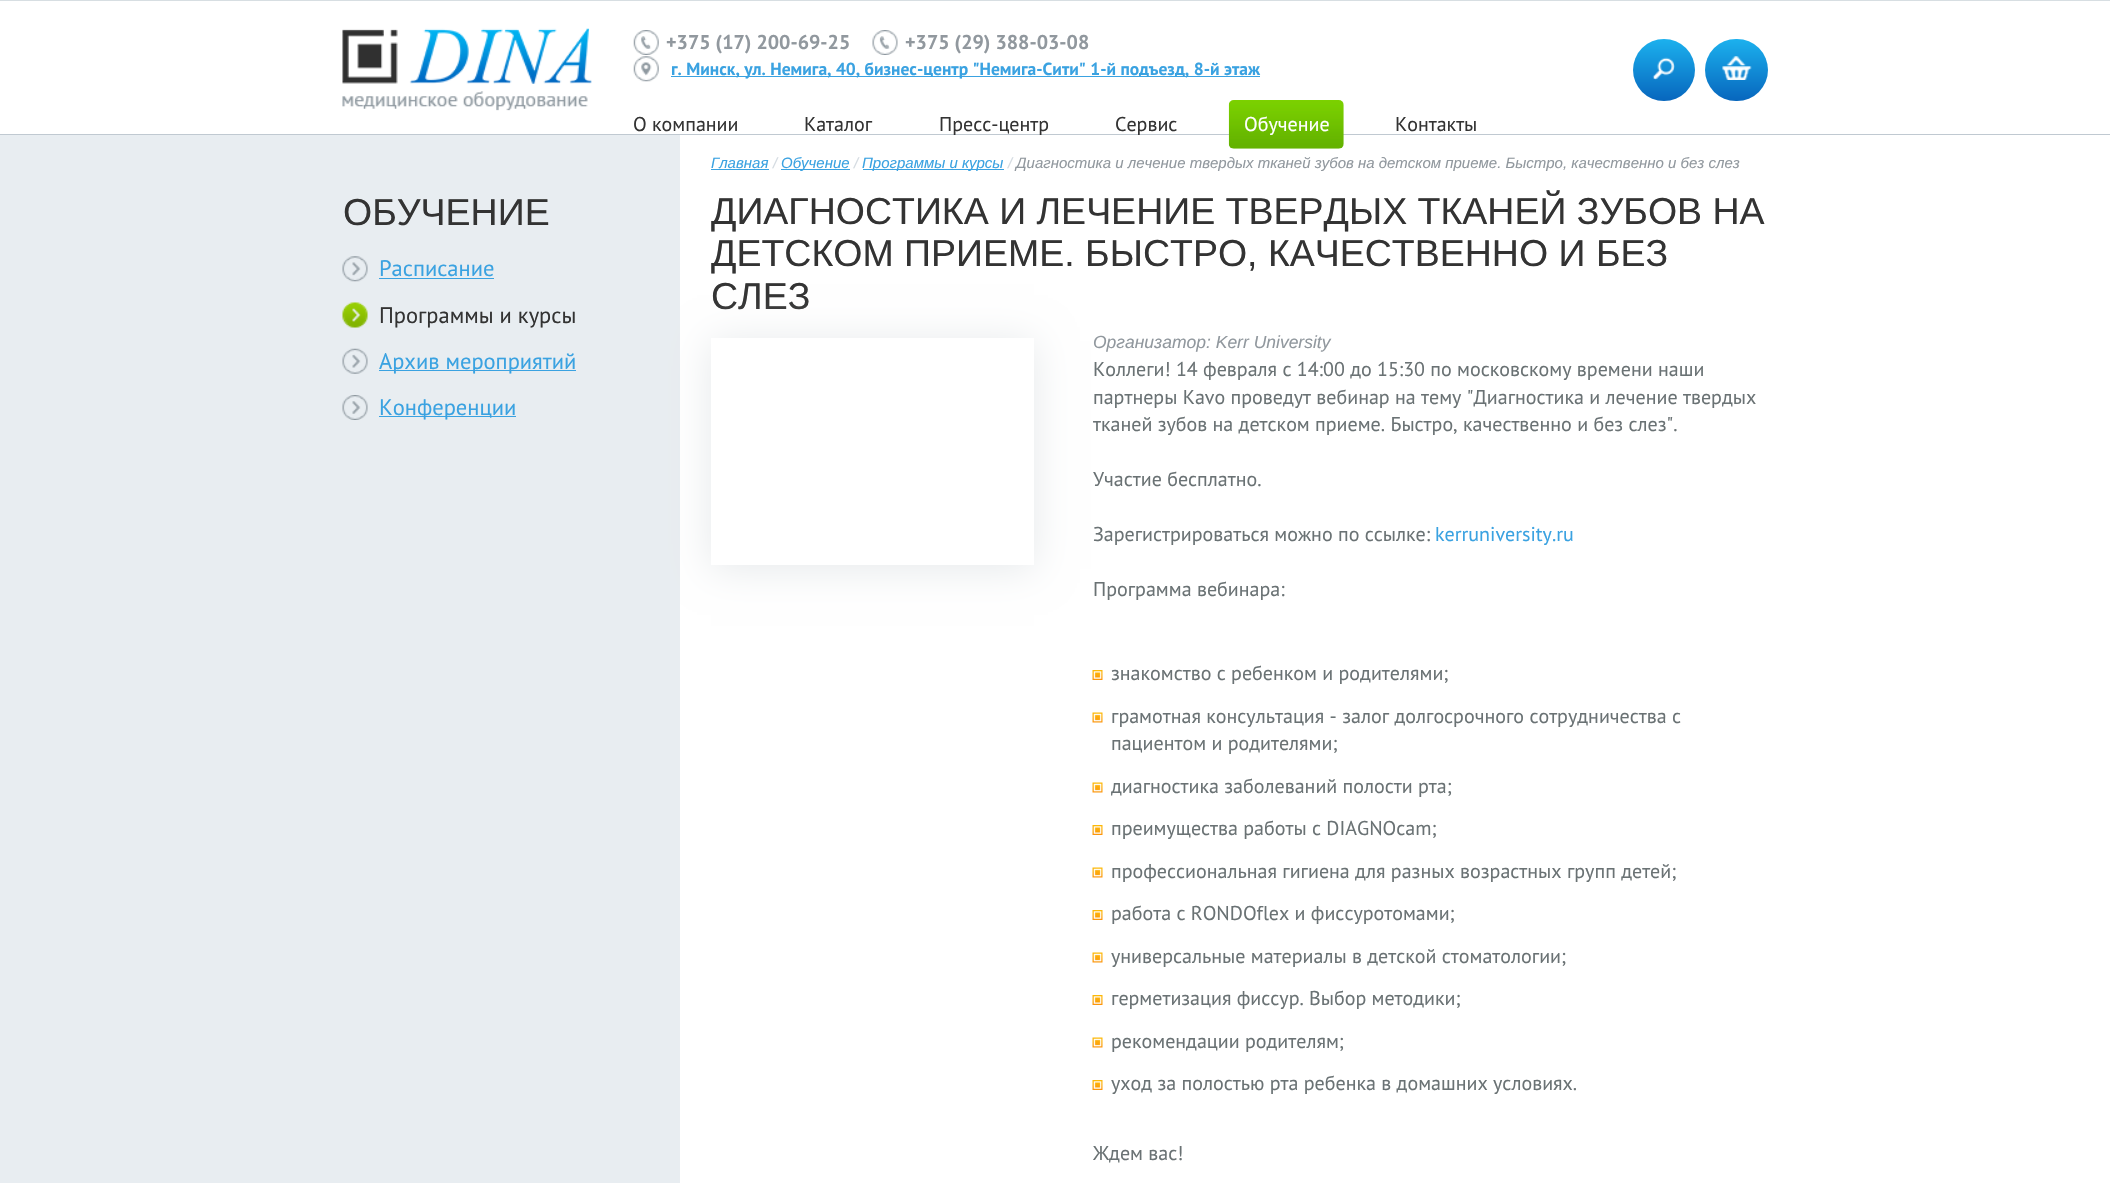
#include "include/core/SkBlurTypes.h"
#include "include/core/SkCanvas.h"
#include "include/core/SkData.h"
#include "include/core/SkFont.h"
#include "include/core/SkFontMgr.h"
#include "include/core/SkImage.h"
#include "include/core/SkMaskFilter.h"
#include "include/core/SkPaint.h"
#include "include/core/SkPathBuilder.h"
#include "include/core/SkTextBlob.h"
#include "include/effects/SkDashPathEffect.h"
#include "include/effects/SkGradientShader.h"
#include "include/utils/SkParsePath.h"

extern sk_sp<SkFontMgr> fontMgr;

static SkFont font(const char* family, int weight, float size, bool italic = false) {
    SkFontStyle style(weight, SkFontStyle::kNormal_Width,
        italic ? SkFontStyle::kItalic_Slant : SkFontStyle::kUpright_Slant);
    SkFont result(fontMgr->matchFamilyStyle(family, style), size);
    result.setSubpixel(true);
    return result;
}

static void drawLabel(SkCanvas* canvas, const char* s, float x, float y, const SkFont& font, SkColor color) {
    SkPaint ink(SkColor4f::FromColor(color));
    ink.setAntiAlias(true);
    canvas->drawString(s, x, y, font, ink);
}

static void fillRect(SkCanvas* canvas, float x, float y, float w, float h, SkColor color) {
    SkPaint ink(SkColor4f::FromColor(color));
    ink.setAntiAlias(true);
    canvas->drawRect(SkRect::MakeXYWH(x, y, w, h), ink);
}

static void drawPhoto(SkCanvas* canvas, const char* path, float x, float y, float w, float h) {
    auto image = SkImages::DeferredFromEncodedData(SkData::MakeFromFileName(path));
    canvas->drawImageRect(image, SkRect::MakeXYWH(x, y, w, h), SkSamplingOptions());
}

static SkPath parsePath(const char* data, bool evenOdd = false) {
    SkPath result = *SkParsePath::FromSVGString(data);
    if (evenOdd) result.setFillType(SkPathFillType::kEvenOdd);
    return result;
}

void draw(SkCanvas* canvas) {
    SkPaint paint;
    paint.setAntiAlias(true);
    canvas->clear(0xFFFFFFFF);
    fillRect(canvas, 0, 0, 2110, 1, 0xFFD7DEE2);
    fillRect(canvas, 0, 134, 2110, 1, 0xFFC0C9D1);
    drawPhoto(canvas, "assets/img1.png", 342, 28, 250, 83);
    drawPhoto(canvas, "assets/img2.png", 633, 30, 26, 25);
    SkFont font1 = font("PT Sans", 700, 20);
    drawLabel(canvas, "+375 (17) 200-69-25", 666, 49, font1, 0xFF91989E);
    drawPhoto(canvas, "assets/img3.png", 872, 30, 26, 25);
    drawLabel(canvas, "+375 (29) 388-03-08", 905, 49, font1, 0xFF91989E);
    drawPhoto(canvas, "assets/img4.png", 633, 56, 26, 26);
    fillRect(canvas, 671, 76, 589, 1, 0xFF3AA2E1);
    SkFont font2 = font("PT Sans", 700, 17.5f);
    drawLabel(canvas, "г. Минск, ул. Немига, 40, бизнес-центр \"Немига-Сити\" 1-й подъезд, 8-й этаж", 671, 75, font2, 0xFF3AA2E1);
    SkFont font3 = font("PT Sans", 400, 20);
    drawLabel(canvas, "О компании", 633, 131, font3, 0xFF333333);
    drawLabel(canvas, "Каталог", 804, 131, font3, 0xFF333333);
    drawLabel(canvas, "Пресс-центр", 939, 131, font3, 0xFF333333);
    drawLabel(canvas, "Сервис", 1115, 131, font3, 0xFF333333);
    drawPhoto(canvas, "assets/img5.png", 1228, 100, 116, 49);
    drawLabel(canvas, "Обучение", 1244, 131, font3, 0xFFFFFFFF);
    drawLabel(canvas, "Контакты", 1395, 131, font3, 0xFF333333);
    {
        const SkColor colors[] = {0xFF0766BD, 0xFF1CB1EE};
        const float stops[] = {0, 1};
        const SkPoint ends[] = {{1664, 101}, {1664, 39}};
        paint.setShader(SkGradientShader::MakeLinear(ends, colors, stops, 2, SkTileMode::kClamp));
        paint.setAlpha(255);
    }
    canvas->drawCircle(1664, 70, 31, paint);
    drawPhoto(canvas, "assets/img6.png", 1652, 57, 23, 23);
    {
        const SkColor colors[] = {0xFF0766BD, 0xFF1CB1EE};
        const float stops[] = {0, 1};
        const SkPoint ends[] = {{1736, 101}, {1736, 39}};
        paint.setShader(SkGradientShader::MakeLinear(ends, colors, stops, 2, SkTileMode::kClamp));
        paint.setAlpha(255);
    }
    canvas->drawRoundRect(SkRect::MakeXYWH(1705, 39, 63, 62), 31, 31, paint);
    drawPhoto(canvas, "assets/img7.png", 1722, 56, 30, 24);
    fillRect(canvas, 0, 135, 680, 1048, 0xFFE8EDF1);
    SkFont font4 = font("Liberation Sans", 400, 37.5f);
    drawLabel(canvas, "ОБУЧЕНИЕ", 343, 225, font4, 0xFF333333);
    drawPhoto(canvas, "assets/img8.png", 342, 256, 26, 26);
    SkFont font5 = font("PT Sans", 400, 22.5f);
    drawLabel(canvas, "Расписание", 379, 276, font5, 0xFF3AA2E1);
    fillRect(canvas, 379, 278, 115, 1, 0xFF3AA2E1);
    drawPhoto(canvas, "assets/img9.png", 342, 302, 26, 26);
    drawLabel(canvas, "Программы и курсы", 379, 323, font5, 0xFF333333);
    drawPhoto(canvas, "assets/img10.png", 342, 348, 26, 26);
    fillRect(canvas, 379, 370, 197, 1, 0xFF3AA2E1);
    drawLabel(canvas, "Архив мероприятий", 379, 369, font5, 0xFF3AA2E1);
    drawPhoto(canvas, "assets/img11.png", 342, 395, 26, 25);
    fillRect(canvas, 379, 416, 137, 1, 0xFF3AA2E1);
    drawLabel(canvas, "Конференции", 379, 415, font5, 0xFF3AA2E1);
    SkFont font6 = font("Liberation Sans", 400, 15, true);
    drawLabel(canvas, "Главная", 711, 168, font6, 0xFF3AA2E1);
    fillRect(canvas, 711, 169, 58, 1, 0xFF3AA2E1);
    drawLabel(canvas, "/", 773, 168, font6, 0xFFD4DBE1);
    fillRect(canvas, 781, 169, 69, 1, 0xFF3AA2E1);
    drawLabel(canvas, "Обучение", 781, 168, font6, 0xFF3AA2E1);
    drawLabel(canvas, "/", 854, 168, font6, 0xFFD4DBE1);
    fillRect(canvas, 863, 169, 141, 1, 0xFF3AA2E1);
    drawLabel(canvas, "Программы и курсы", 862, 168, font6, 0xFF3AA2E1);
    drawLabel(canvas, "/", 1008, 168, font6, 0xFFD4DBE1);
    drawLabel(canvas, "Диагностика и лечение твердых тканей зубов на детском приеме. Быстро, качественно и без слез", 1016, 168, font6, 0xFF91989E);
    drawLabel(canvas, "ДИАГНОСТИКА И ЛЕЧЕНИЕ ТВЕРДЫХ ТКАНЕЙ ЗУБОВ НА", 711, 224, font4, 0xFF333333);
    drawLabel(canvas, "ДЕТСКОМ ПРИЕМЕ. БЫСТРО, КАЧЕСТВЕННО И БЕЗ", 711, 266, font4, 0xFF333333);
    drawLabel(canvas, "СЛЕЗ", 711, 309, font4, 0xFF333333);
    canvas->save();
    canvas->clipPath(parsePath("M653 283H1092V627H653ZM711 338H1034V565H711Z", true), true);
    paint.setShader(nullptr);
    paint.setColor(0xFFE6E9EB);
    paint.setMaskFilter(SkMaskFilter::MakeBlur(kNormal_SkBlurStyle, 19));
    canvas->drawRect(SkRect::MakeXYWH(711, 341, 323, 228), paint);
    paint.setMaskFilter(nullptr);
    canvas->restore();
    SkFont font7 = font("Liberation Sans", 400, 17.5f, true);
    drawLabel(canvas, "Организатор: Kerr University", 1093, 348, font7, 0xFF91989E);
    drawLabel(canvas, "Коллеги! 14 февраля с 14:00 до 15:30 по московскому времени наши", 1093, 376, font3, 0xFF6A7274);
    drawLabel(canvas, "партнеры Kavo проведут вебинар на тему \"Диагностика и лечение твердых", 1093, 404, font3, 0xFF6A7274);
    drawLabel(canvas, "тканей зубов на детском приеме. Быстро, качественно и без слез\".", 1093, 431, font3, 0xFF6A7274);
    drawLabel(canvas, "Участие бесплатно.", 1093, 486, font3, 0xFF6A7274);
    drawLabel(canvas, "Зарегистрироваться можно по ссылке:", 1093, 541, font3, 0xFF6A7274);
    drawLabel(canvas, "kerruniversity.ru", 1435, 541, font3, 0xFF3AA2E1);
    drawLabel(canvas, "Программа вебинара:", 1093, 596, font3, 0xFF6A7274);
    drawPhoto(canvas, "assets/img12.png", 1092, 670, 11, 10);
    drawLabel(canvas, "знакомство с ребенком и родителями;", 1111, 680, font3, 0xFF6A7274);
    drawPhoto(canvas, "assets/img13.png", 1092, 712, 11, 11);
    drawLabel(canvas, "грамотная консультация - залог долгосрочного сотрудничества с", 1111, 723, font3, 0xFF6A7274);
    drawLabel(canvas, "пациентом и родителями;", 1111, 750, font3, 0xFF6A7274);
    drawPhoto(canvas, "assets/img13.png", 1092, 782, 11, 11);
    drawLabel(canvas, "диагностика заболеваний полости рта;", 1111, 793, font3, 0xFF6A7274);
    drawPhoto(canvas, "assets/img12.png", 1092, 825, 11, 10);
    drawLabel(canvas, "преимущества работы с DIAGNOcam;", 1111, 835, font3, 0xFF6A7274);
    drawPhoto(canvas, "assets/img13.png", 1092, 867, 11, 11);
    drawLabel(canvas, "профессиональная гигиена для разных возрастных групп детей;", 1111, 878, font3, 0xFF6A7274);
    drawPhoto(canvas, "assets/img12.png", 1092, 910, 11, 10);
    drawLabel(canvas, "работа с RONDOflex и фиссуротомами;", 1111, 920, font3, 0xFF6A7274);
    drawPhoto(canvas, "assets/img13.png", 1092, 952, 11, 11);
    drawLabel(canvas, "универсальные материалы в детской стоматологии;", 1111, 963, font3, 0xFF6A7274);
    drawPhoto(canvas, "assets/img12.png", 1092, 995, 11, 10);
    drawLabel(canvas, "герметизация фиссур. Выбор методики;", 1111, 1005, font3, 0xFF6A7274);
    drawPhoto(canvas, "assets/img13.png", 1092, 1037, 11, 11);
    drawLabel(canvas, "рекомендации родителям;", 1111, 1048, font3, 0xFF6A7274);
    drawPhoto(canvas, "assets/img12.png", 1092, 1080, 11, 10);
    drawLabel(canvas, "уход за полостью рта ребенка в домашних условиях.", 1111, 1090, font3, 0xFF6A7274);
    drawLabel(canvas, "Ждем вас!", 1093, 1160, font3, 0xFF6A7274);
}
